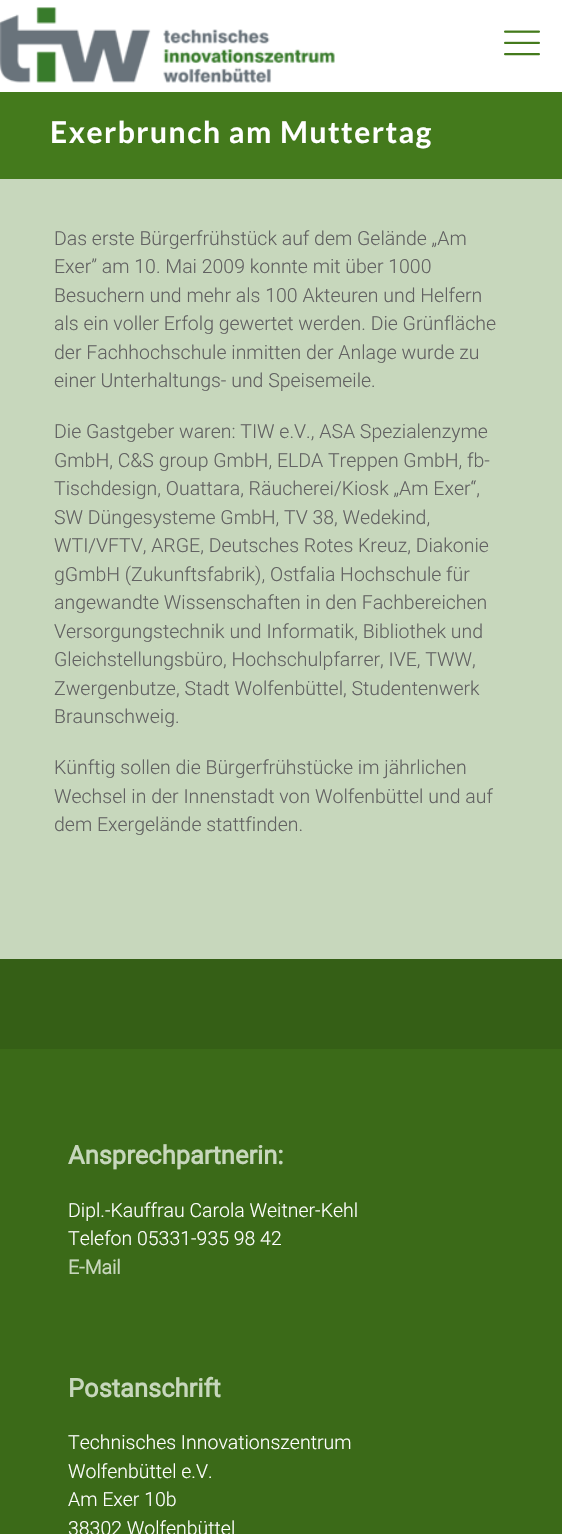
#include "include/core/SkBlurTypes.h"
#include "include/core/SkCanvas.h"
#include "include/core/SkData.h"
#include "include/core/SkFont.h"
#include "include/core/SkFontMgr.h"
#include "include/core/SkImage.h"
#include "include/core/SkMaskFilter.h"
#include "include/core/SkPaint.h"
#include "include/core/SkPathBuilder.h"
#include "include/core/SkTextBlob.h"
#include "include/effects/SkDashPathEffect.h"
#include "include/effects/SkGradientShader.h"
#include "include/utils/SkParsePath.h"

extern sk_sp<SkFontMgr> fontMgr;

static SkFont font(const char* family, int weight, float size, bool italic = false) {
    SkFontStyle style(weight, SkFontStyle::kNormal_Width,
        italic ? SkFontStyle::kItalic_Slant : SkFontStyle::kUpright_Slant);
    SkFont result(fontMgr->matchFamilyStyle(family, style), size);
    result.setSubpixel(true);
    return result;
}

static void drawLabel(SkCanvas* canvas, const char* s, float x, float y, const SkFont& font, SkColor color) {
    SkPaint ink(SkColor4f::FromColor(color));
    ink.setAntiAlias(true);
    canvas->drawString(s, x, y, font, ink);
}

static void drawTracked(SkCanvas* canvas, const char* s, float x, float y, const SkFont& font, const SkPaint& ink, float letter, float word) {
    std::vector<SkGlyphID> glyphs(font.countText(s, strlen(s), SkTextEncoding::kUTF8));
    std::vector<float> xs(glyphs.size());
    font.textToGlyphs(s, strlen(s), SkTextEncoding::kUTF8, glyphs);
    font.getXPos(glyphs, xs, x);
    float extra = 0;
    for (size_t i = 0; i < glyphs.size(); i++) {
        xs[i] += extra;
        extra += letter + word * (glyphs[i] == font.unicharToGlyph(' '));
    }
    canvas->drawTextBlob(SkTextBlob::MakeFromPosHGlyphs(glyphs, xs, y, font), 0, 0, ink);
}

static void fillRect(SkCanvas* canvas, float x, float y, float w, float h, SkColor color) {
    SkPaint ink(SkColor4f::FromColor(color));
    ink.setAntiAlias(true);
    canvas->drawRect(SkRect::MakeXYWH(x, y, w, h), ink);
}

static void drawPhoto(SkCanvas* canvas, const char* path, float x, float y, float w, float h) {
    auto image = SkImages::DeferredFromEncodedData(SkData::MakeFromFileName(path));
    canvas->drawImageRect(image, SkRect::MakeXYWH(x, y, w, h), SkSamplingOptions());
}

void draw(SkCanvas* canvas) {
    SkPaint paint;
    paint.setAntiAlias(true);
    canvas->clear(0xFFC7D7BC);
    fillRect(canvas, 0, 0, 562, 92, 0xFFFFFFFF);
    drawPhoto(canvas, "assets/img1.png", 0, 7, 335, 76);
    drawPhoto(canvas, "assets/img2.png", 504, 30, 36, 26);
    fillRect(canvas, 0, 92, 562, 87, 0xFF447A1C);
    SkFont font1 = font("Lato", 700, 30);
    paint.setColor(0xFFFFFFFF);
    drawTracked(canvas, "Exerbrunch am Muttertag", 50, 143, font1, paint, 1.5f, 0);
    SkFont font2 = font("Roboto", 300, 19.5f);
    drawLabel(canvas, "Das erste Bürgerfrühstück auf dem Gelände „Am", 54, 245, font2, 0xFF626262);
    drawLabel(canvas, "Exer” am 10. Mai 2009 konnte mit über 1000", 54, 273, font2, 0xFF626262);
    drawLabel(canvas, "Besuchern und mehr als 100 Akteuren und Helfern", 54, 302, font2, 0xFF626262);
    drawLabel(canvas, "als ein voller Erfolg gewertet werden. Die Grünfläche", 54, 330, font2, 0xFF626262);
    drawLabel(canvas, "der Fachhochschule inmitten der Anlage wurde zu", 54, 359, font2, 0xFF626262);
    drawLabel(canvas, "einer Unterhaltungs- und Speisemeile.", 54, 387, font2, 0xFF626262);
    drawLabel(canvas, "Die Gastgeber waren: TIW e.V., ASA Spezialenzyme", 54, 438, font2, 0xFF626262);
    drawLabel(canvas, "GmbH, C&S group GmbH, ELDA Treppen GmbH, fb-", 54, 467, font2, 0xFF626262);
    drawLabel(canvas, "Tischdesign, Ouattara, Räucherei/Kiosk „Am Exer“,", 54, 495, font2, 0xFF626262);
    drawLabel(canvas, "SW Düngesysteme GmbH, TV 38, Wedekind,", 54, 524, font2, 0xFF626262);
    drawLabel(canvas, "WTI/VFTV, ARGE, Deutsches Rotes Kreuz, Diakonie", 54, 552, font2, 0xFF626262);
    drawLabel(canvas, "gGmbH (Zukunftsfabrik), Ostfalia Hochschule für", 54, 581, font2, 0xFF626262);
    drawLabel(canvas, "angewandte Wissenschaften in den Fachbereichen", 54, 609, font2, 0xFF626262);
    drawLabel(canvas, "Versorgungstechnik und Informatik, Bibliothek und", 54, 638, font2, 0xFF626262);
    drawLabel(canvas, "Gleichstellungsbüro, Hochschulpfarrer, IVE, TWW,", 54, 666, font2, 0xFF626262);
    drawLabel(canvas, "Zwergenbutze, Stadt Wolfenbüttel, Studentenwerk", 54, 695, font2, 0xFF626262);
    drawLabel(canvas, "Braunschweig.", 54, 723, font2, 0xFF626262);
    drawLabel(canvas, "Künftig sollen die Bürgerfrühstücke im jährlichen", 54, 774, font2, 0xFF626262);
    drawLabel(canvas, "Wechsel in der Innenstadt von Wolfenbüttel und auf", 54, 803, font2, 0xFF626262);
    drawLabel(canvas, "dem Exergelände stattfinden.", 54, 831, font2, 0xFF626262);
    fillRect(canvas, 0, 1049, 562, 485, 0xFF3B6A18);
    fillRect(canvas, 0, 959, 562, 90, 0xFF355F16);
    SkFont font3 = font("Roboto", 700, 25.5f);
    drawLabel(canvas, "Ansprechpartnerin:", 68, 1164, font3, 0xFFC7D7BC);
    drawLabel(canvas, "Dipl.-Kauffrau Carola Weitner-Kehl", 68, 1217, font2, 0xFFFFFFFF);
    drawLabel(canvas, "Telefon 05331-935 98 42", 68, 1245, font2, 0xFFFFFFFF);
    SkFont font4 = font("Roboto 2", 700, 19.5f);
    drawLabel(canvas, "E-Mail", 68, 1274, font4, 0xFFC7D7BC);
    drawLabel(canvas, "Postanschrift", 68, 1397, font3, 0xFFC7D7BC);
    drawLabel(canvas, "Technisches Innovationszentrum", 68, 1449, font2, 0xFFFFFFFF);
    drawLabel(canvas, "Wolfenbüttel e.V.", 68, 1478, font2, 0xFFFFFFFF);
    drawLabel(canvas, "Am Exer 10b", 68, 1506, font2, 0xFFFFFFFF);
    drawLabel(canvas, "38302 Wolfenbüttel", 68, 1535, font2, 0xFFFFFFFF);
}
